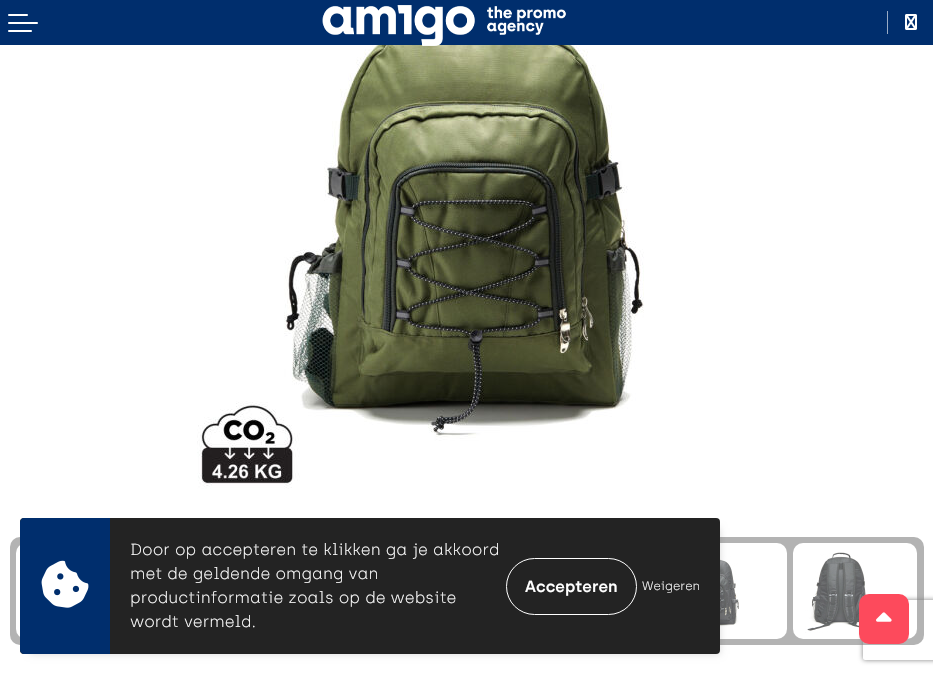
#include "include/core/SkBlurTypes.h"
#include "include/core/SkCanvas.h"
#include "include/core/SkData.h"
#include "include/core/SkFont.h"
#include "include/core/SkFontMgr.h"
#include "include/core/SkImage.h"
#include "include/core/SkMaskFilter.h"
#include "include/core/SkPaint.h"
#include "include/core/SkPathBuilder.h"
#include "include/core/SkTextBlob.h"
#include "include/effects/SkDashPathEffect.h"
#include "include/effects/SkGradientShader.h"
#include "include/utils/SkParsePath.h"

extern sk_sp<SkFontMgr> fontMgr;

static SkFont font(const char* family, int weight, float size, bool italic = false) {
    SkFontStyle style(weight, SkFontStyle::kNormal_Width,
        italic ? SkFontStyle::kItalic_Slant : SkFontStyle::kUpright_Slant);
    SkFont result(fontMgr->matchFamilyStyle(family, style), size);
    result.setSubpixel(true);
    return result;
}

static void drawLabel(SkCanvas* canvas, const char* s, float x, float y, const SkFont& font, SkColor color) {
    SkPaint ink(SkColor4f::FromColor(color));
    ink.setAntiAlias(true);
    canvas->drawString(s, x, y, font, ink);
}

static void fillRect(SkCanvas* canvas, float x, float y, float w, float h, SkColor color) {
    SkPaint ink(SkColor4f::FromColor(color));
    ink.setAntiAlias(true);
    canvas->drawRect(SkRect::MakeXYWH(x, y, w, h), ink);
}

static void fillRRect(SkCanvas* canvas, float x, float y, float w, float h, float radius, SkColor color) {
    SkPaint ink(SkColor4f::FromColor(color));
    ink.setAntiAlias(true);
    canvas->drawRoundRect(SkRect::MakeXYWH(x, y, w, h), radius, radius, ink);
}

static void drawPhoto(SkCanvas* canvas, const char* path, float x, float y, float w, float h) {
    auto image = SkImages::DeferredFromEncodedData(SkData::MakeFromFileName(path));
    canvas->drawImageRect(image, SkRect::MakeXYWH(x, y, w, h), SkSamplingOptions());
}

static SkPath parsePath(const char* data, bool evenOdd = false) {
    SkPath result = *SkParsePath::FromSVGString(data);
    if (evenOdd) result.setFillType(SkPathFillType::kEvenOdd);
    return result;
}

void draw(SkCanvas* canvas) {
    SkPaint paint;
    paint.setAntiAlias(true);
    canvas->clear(0xFFFFFFFF);
    fillRect(canvas, 0, 0, 933, 45, 0xFF002E6D);
    drawPhoto(canvas, "assets/img1.png", 8, 14, 30, 18);
    drawPhoto(canvas, "assets/img5.png", 197, 45, 447, 444);
    drawPhoto(canvas, "assets/img2.png", 322, 5, 244, 41);
    fillRect(canvas, 887, 11, 1, 23, 0xFF99ABC5);
    drawPhoto(canvas, "assets/img3.png", 905, 14, 12, 16);
    fillRRect(canvas, 10, 537, 914, 108, 10, 0xFFB3B3B3);
    fillRRect(canvas, 793, 543, 124, 96, 10, 0xFFFFFFFF);
    drawPhoto(canvas, "assets/img7.png", 805, 552, 69, 81);
    canvas->save();
    canvas->clipPath(parsePath("M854 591H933V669H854ZM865 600H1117C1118 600 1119 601 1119 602V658C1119 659 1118 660 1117 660H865C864 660 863 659 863 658V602C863 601 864 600 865 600Z", true), true);
    paint.setColor(0xFF808080);
    paint.setMaskFilter(SkMaskFilter::MakeBlur(kNormal_SkBlurStyle, 2.5f));
    canvas->drawRoundRect(SkRect::MakeXYWH(863, 600, 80, 60), 2, 2, paint);
    paint.setMaskFilter(nullptr);
    canvas->restore();
    fillRRect(canvas, 859, 594, 50, 50, 10, 0xFFFD4A5C);
    drawPhoto(canvas, "assets/img4.png", 876, 612, 16, 10);
    fillRRect(canvas, 16, 543, 123, 96, 10, 0xFFFFFFFF);
    fillRRect(canvas, 664, 543, 123, 96, 10, 0xFFFFFFFF);
    drawPhoto(canvas, "assets/img6.png", 720, 554, 19, 74);
    paint.setColor(0x26000000);
    paint.setMaskFilter(SkMaskFilter::MakeBlur(kNormal_SkBlurStyle, 3.5f));
    canvas->drawRect(SkRect::MakeXYWH(30, 528, 690, 126), paint);
    paint.setMaskFilter(nullptr);
    fillRRect(canvas, 20, 518, 700, 136, 4, 0xFF232323);
    paint.setColor(0xFF002E6D);
    canvas->drawPath(parsePath("M24 518H110V654H24C22 654 20 652 20 650V522C20 520 22 518 24 518Z"), paint);
    drawPhoto(canvas, "assets/img8.png", 41, 560, 48, 48);
    SkFont font1 = font("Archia", 200, 16);
    drawLabel(canvas, "Door op accepteren te klikken ga je akkoord", 130, 555, font1, 0xFFFFFFFF);
    drawLabel(canvas, "met de geldende omgang van", 130, 579, font1, 0xFFFFFFFF);
    paint.setStroke(true);
    paint.setStrokeWidth(1);
    paint.setColor(0xFFFFFFFF);
    canvas->drawRoundRect(SkRect::MakeXYWH(506.5f, 558.5f, 130, 56), 28, 28, paint);
    SkFont font2 = font("Archia", 600, 16);
    drawLabel(canvas, "Accepteren", 525, 592, font2, 0xFFFFFFFF);
    SkFont font3 = font("Archia", 200, 12);
    drawLabel(canvas, "Weigeren", 642, 590, font3, 0xFFFFFFFF);
    drawLabel(canvas, "productinformatie zoals op de website", 130, 603, font1, 0xFFFFFFFF);
    drawLabel(canvas, "wordt vermeld.", 130, 627, font1, 0xFFFFFFFF);
}
